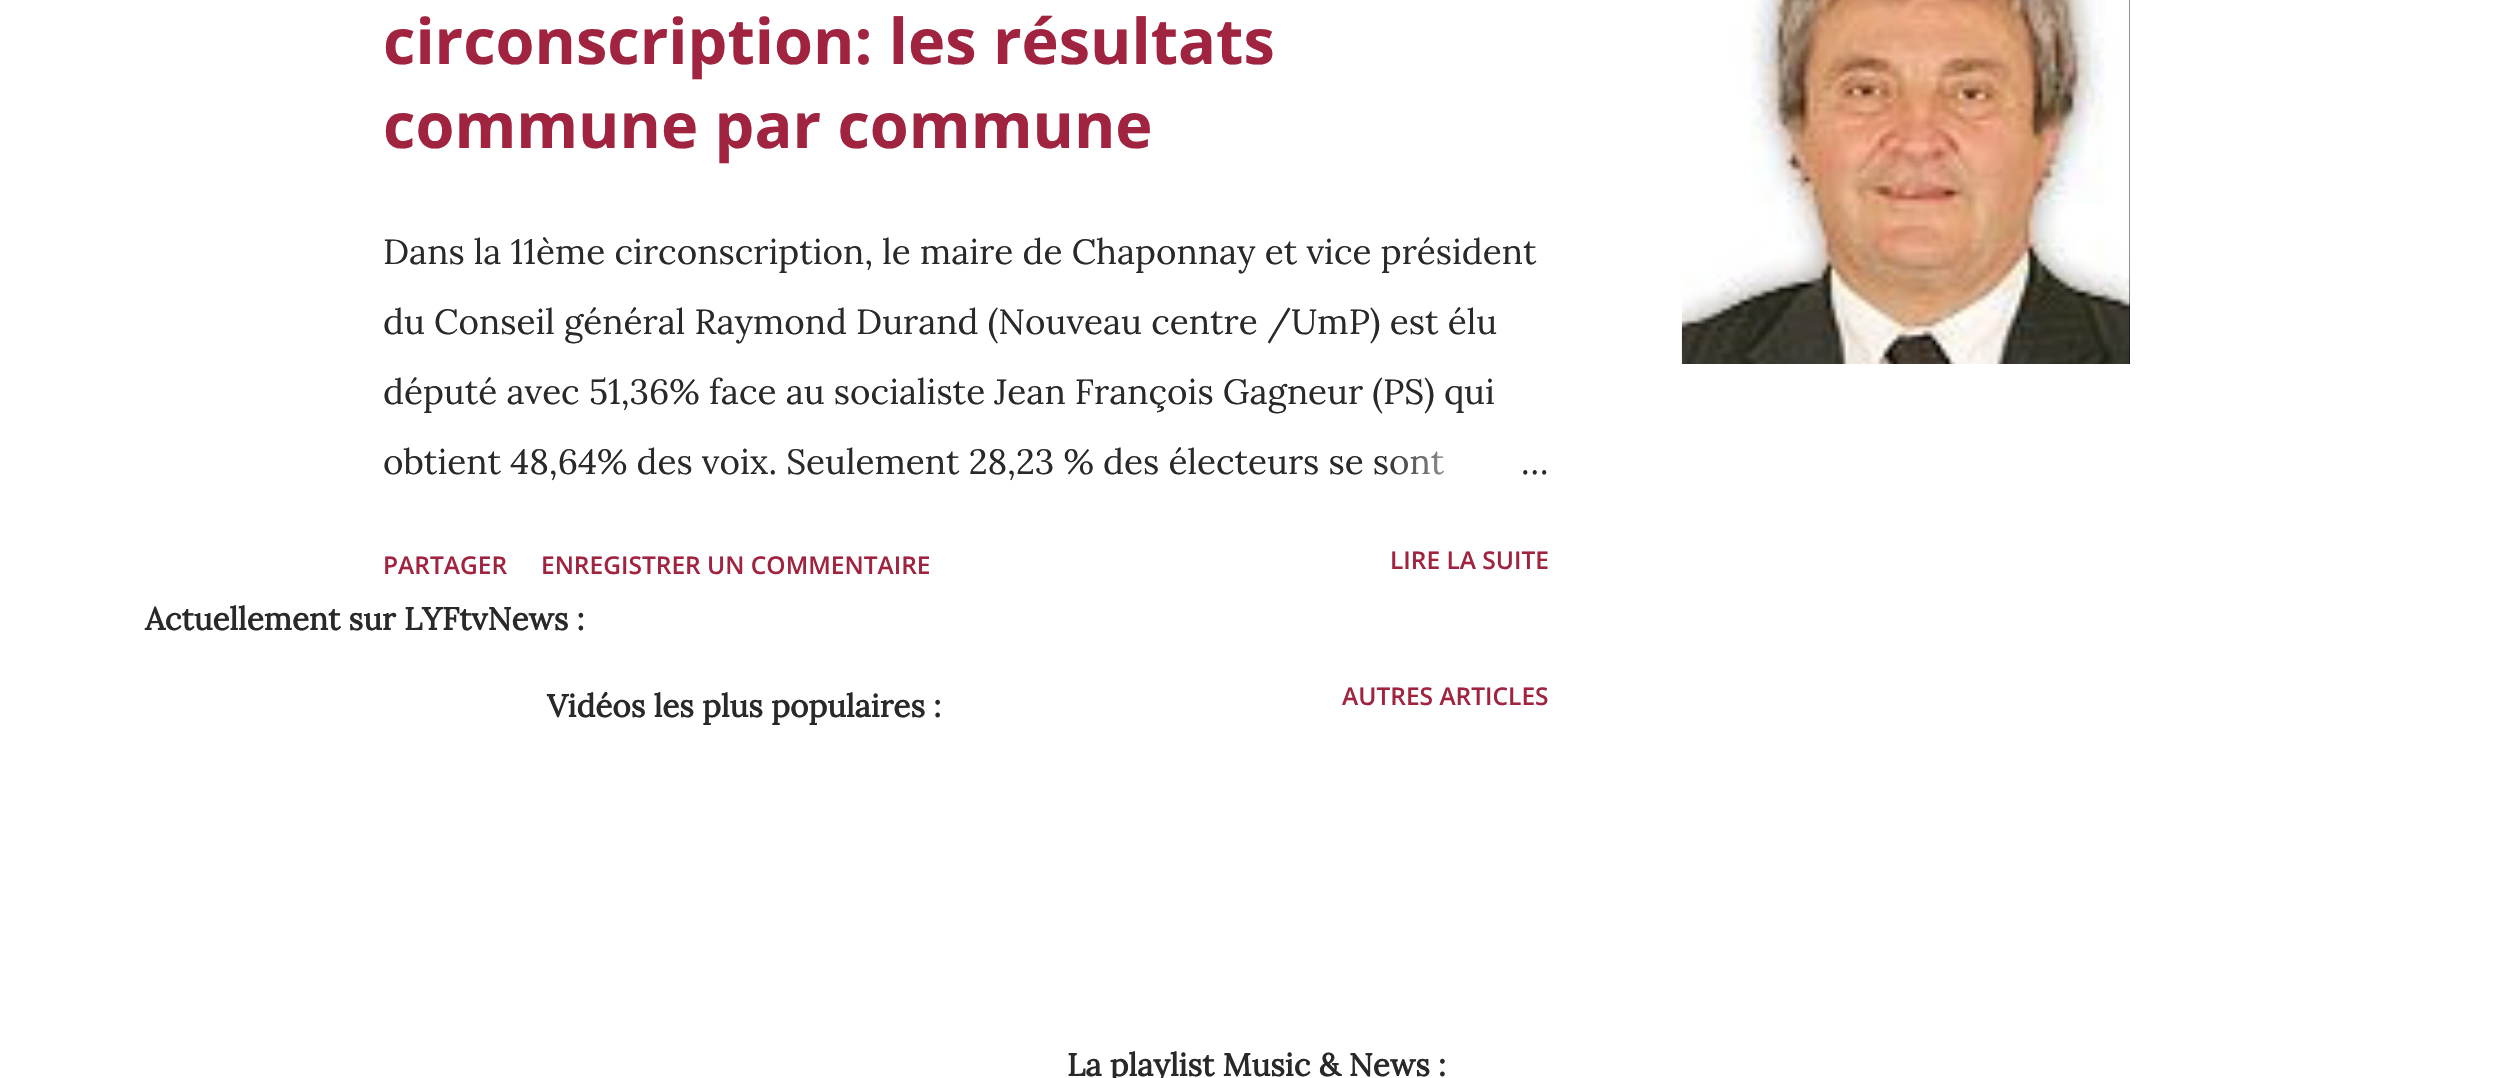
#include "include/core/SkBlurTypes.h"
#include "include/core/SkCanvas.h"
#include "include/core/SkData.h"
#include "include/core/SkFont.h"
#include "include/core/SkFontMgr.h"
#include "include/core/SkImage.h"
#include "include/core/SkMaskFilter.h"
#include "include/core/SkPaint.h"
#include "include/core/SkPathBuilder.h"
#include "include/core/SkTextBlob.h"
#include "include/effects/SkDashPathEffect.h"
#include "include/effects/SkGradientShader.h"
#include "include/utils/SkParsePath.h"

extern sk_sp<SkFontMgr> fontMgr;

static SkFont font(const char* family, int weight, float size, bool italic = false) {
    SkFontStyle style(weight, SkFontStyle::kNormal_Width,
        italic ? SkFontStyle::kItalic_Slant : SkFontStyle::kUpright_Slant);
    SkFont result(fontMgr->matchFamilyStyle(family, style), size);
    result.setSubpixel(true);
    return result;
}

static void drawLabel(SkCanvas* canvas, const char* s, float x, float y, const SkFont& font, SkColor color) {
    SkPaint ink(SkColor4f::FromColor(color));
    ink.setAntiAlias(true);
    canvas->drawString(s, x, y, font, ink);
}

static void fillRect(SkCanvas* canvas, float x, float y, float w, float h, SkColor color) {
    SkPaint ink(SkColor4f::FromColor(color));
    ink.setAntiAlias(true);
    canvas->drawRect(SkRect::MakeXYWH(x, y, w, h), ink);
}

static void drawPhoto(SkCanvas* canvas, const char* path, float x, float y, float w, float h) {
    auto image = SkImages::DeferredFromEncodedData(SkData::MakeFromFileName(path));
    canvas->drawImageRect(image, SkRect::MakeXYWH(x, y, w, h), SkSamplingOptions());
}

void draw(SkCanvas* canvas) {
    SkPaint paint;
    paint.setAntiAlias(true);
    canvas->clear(0xFFFFFFFF);
    SkFont font1 = font("Open Sans", 700, 63);
    drawLabel(canvas, "circonscription: les résultats", 383, 64, font1, 0xFFA0243F);
    drawLabel(canvas, "commune par commune", 383, 148, font1, 0xFFA0243F);
    SkFont font2 = font("Lora", 400, 35);
    drawLabel(canvas, "Dans la 11ème circonscription, le maire de Chaponnay et vice président", 383, 264, font2, 0xFF292929);
    drawLabel(canvas, "du Conseil général Raymond Durand (Nouveau centre /UmP) est élu", 383, 334, font2, 0xFF292929);
    drawLabel(canvas, "député avec 51,36% face au socialiste Jean François Gagneur (PS) qui", 383, 404, font2, 0xFF292929);
    drawLabel(canvas, "obtient 48,64% des voix. Seulement 28,23 % des électeurs se sont", 383, 474, font2, 0xFF292929);
    {
        const SkColor colors[] = {0xFFFFFFFF, 0xFFFFFFFF, 0x00FFFFFF};
        const float stops[] = {0, 0.2f, 1};
        const SkPoint ends[] = {{1549, 462}, {1381, 462}};
        paint.setShader(SkGradientShader::MakeLinear(ends, colors, stops, 3, SkTileMode::kClamp));
        paint.setAlpha(255);
    }
    canvas->drawRect(SkRect::MakeXYWH(1384, 451, 61, 24), paint);
    drawLabel(canvas, "…", 1521, 474, font2, 0xFF292929);
    SkFont font3 = font("Open Sans", 600, 24.5f);
    drawLabel(canvas, "PARTAGER", 383, 574, font3, 0xFFA0243F);
    drawLabel(canvas, "ENREGISTRER UN COMMENTAIRE", 541, 574, font3, 0xFFA0243F);
    drawLabel(canvas, "LIRE LA SUITE", 1390, 569, font3, 0xFFA0243F);
    fillRect(canvas, 2129, 0, 1, 364, 0xFF000000);
    drawPhoto(canvas, "assets/img1.png", 1681, 0, 449, 364);
    drawLabel(canvas, "AUTRES ARTICLES", 1342, 705, font3, 0xFFA0243F);
    SkFont font4 = font("Lora", 700, 31.5f);
    drawLabel(canvas, "Actuellement sur LYFtvNews :", 145, 630, font4, 0xFF292929);
    drawLabel(canvas, "Vidéos les plus populaires :", 547, 717, font4, 0xFF292929);
    drawLabel(canvas, "La playlist Music & News :", 1067, 1076, font4, 0xFF292929);
}
